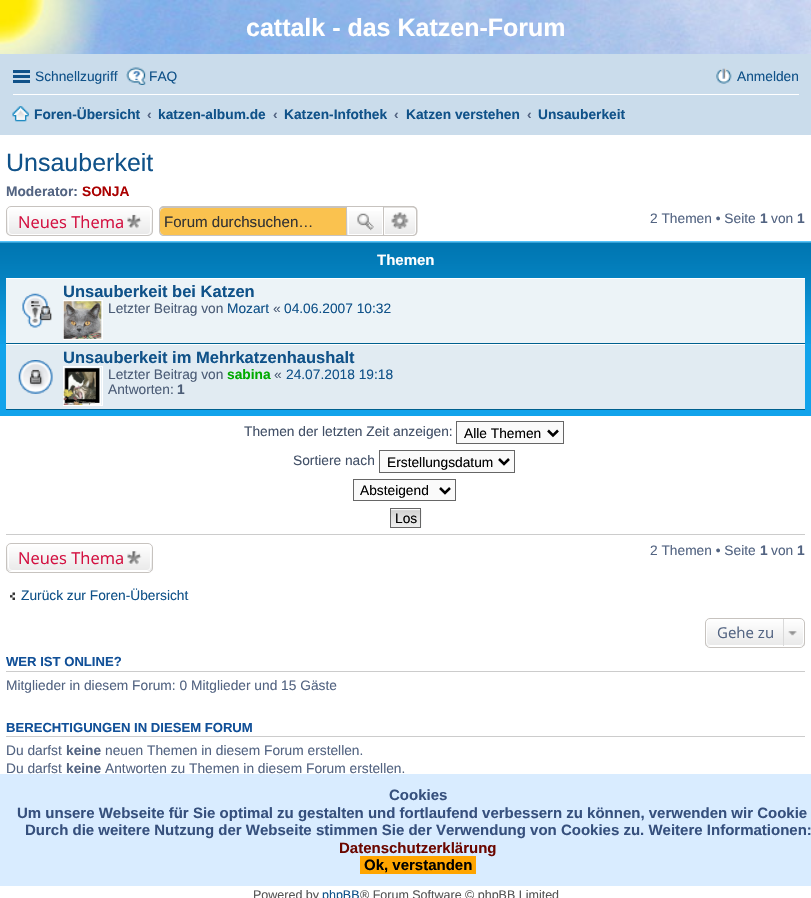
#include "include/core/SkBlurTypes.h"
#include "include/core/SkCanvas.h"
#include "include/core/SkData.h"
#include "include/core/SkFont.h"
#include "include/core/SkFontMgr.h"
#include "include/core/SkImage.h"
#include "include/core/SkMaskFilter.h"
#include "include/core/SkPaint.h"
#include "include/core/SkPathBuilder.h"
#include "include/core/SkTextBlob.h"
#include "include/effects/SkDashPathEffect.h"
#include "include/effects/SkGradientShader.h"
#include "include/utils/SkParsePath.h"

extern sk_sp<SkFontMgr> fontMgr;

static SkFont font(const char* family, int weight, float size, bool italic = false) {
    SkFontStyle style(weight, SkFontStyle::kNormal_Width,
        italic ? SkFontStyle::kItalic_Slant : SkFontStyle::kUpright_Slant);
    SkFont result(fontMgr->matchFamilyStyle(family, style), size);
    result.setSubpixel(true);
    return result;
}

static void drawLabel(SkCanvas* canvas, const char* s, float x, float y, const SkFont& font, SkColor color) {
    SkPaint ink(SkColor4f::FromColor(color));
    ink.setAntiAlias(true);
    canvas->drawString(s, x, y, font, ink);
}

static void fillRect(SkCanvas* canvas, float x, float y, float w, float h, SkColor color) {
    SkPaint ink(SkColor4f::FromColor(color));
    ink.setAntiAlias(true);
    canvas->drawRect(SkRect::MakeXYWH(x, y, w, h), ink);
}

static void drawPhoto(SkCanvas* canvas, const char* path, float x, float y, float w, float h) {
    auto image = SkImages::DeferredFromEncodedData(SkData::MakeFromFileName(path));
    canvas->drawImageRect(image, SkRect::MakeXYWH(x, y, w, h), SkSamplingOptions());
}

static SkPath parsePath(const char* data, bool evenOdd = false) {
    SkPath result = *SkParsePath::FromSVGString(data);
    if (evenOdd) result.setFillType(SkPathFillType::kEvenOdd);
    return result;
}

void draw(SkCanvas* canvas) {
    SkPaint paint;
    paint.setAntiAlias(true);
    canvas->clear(0xFFFFFFFF);
    drawPhoto(canvas, "assets/img1.png", 0, 0, 811, 54);
    SkFont font1 = font("Liberation Sans", 700, 25);
    drawLabel(canvas, "cattalk - das Katzen-Forum", 246, 36, font1, 0xFFFFFFFF);
    fillRect(canvas, 0, 54, 811, 81, 0xFFCADCEB);
    fillRect(canvas, 13, 70, 17, 3, 0xFF105289);
    fillRect(canvas, 13, 75, 17, 3, 0xFF105289);
    fillRect(canvas, 13, 80, 17, 3, 0xFF105289);
    SkFont font2 = font("Liberation Sans", 400, 13.75f);
    drawLabel(canvas, "Schnellzugriff", 35, 81, font2, 0xFF105289);
    drawPhoto(canvas, "assets/img2.png", 126, 67, 20, 18);
    drawLabel(canvas, "FAQ", 149, 81, font2, 0xFF105289);
    drawPhoto(canvas, "assets/img3.png", 716, 68, 16, 16);
    drawLabel(canvas, "Anmelden", 737, 81, font2, 0xFF105289);
    fillRect(canvas, 13, 94, 786, 1, 0xFFFFFFFF);
    drawPhoto(canvas, "assets/img4.png", 12, 106, 17, 16);
    SkFont font3 = font("Liberation Sans", 700, 13.75f);
    drawLabel(canvas, "Foren-Übersicht", 34, 119, font3, 0xFF105289);
    drawLabel(canvas, "‹", 147, 119, font3, 0xFF536482);
    drawLabel(canvas, "katzen-album.de", 158, 119, font3, 0xFF105289);
    drawLabel(canvas, "‹", 273, 119, font3, 0xFF536482);
    drawLabel(canvas, "Katzen-Infothek", 284, 119, font3, 0xFF105289);
    drawLabel(canvas, "‹", 394, 119, font3, 0xFF536482);
    drawLabel(canvas, "Katzen verstehen", 406, 119, font3, 0xFF105289);
    drawLabel(canvas, "‹", 527, 119, font3, 0xFF536482);
    drawLabel(canvas, "Unsauberkeit", 538, 119, font3, 0xFF105289);
    SkFont font4 = font("Liberation Sans", 400, 25);
    drawLabel(canvas, "Unsauberkeit", 6, 171, font4, 0xFF105289);
    drawLabel(canvas, "Moderator:", 6, 196, font3, 0xFF536482);
    drawLabel(canvas, "SONJA", 82, 196, font3, 0xFFAA0000);
    canvas->save();
    canvas->clipPath(parsePath("M11 206H148C151 206 153 208 153 211V231C153 234 151 236 148 236H11C8 236 6 234 6 231V211C6 208 8 206 11 206Z"), true);
    {
        const SkColor colors[] = {0xFFFFFFFF, 0xFFE9E9E9};
        const float stops[] = {0, 1};
        const SkPoint ends[] = {{79, 208}, {79, 235}};
        paint.setShader(SkGradientShader::MakeLinear(ends, colors, stops, 2, SkTileMode::kClamp));
        paint.setAlpha(255);
    }
    canvas->drawRect(SkRect::MakeXYWH(6, 208, 147, 27), paint);
    canvas->restore();
    paint.setStroke(true);
    paint.setStrokeWidth(1);
    paint.setShader(nullptr);
    paint.setColor(0xFFFFFFFF);
    canvas->drawRoundRect(SkRect::MakeXYWH(8.5f, 208.5f, 142, 26), 3.5f, 3.5f, paint);
    paint.setColor(0xFFC7C3BF);
    canvas->drawRoundRect(SkRect::MakeXYWH(6.5f, 206.5f, 146, 29), 4.5f, 4.5f, paint);
    SkFont font5 = font("Open Sans", 400, 16.5f);
    drawLabel(canvas, "Neues Thema", 18, 228, font5, 0xFFD31141);
    drawPhoto(canvas, "assets/img5.png", 127, 214, 15, 15);
    paint.setStroke(false);
    paint.setColor(0xFFFAC24F);
    canvas->drawPath(parsePath("M164 208H346V235H164C162 235 160 233 160 231V212C160 210 162 208 164 208Z"), paint);
    paint.setColor(0xFFC7C3BF);
    canvas->drawPath(parsePath("M164 206H346V236H164C161 236 159 234 159 231V211C159 208 161 206 164 206ZM164 208H346V235H164C162 235 160 233 160 231V211C160 209 162 208 164 208Z", true), paint);
    SkFont font6 = font("Liberation Sans", 400, 15.1f);
    drawLabel(canvas, "Forum durchsuchen…", 164, 227, font6, 0xFF333333);
    {
        const SkColor colors[] = {0xFFFFFFFF, 0xFFE9E9E9};
        const float stops[] = {0, 1};
        const SkPoint ends[] = {{365, 208}, {365, 235}};
        paint.setShader(SkGradientShader::MakeLinear(ends, colors, stops, 2, SkTileMode::kClamp));
        paint.setAlpha(255);
    }
    canvas->drawRect(SkRect::MakeXYWH(347, 211, 35, 24), paint);
    paint.setStroke(true);
    paint.setShader(nullptr);
    paint.setColor(0xFFFFFFFF);
    canvas->drawRect(SkRect::MakeXYWH(348.5f, 208.5f, 34, 26), paint);
    paint.setColor(0xFFC7C3BF);
    canvas->drawRect(SkRect::MakeXYWH(346.5f, 206.5f, 37, 29), paint);
    drawPhoto(canvas, "assets/img6.png", 357, 213, 17, 18);
    paint.setStroke(false);
    {
        const SkColor colors[] = {0xFFFFFFFF, 0xFFE9E9E9};
        const float stops[] = {0, 1};
        const SkPoint ends[] = {{400, 208}, {400, 235}};
        paint.setShader(SkGradientShader::MakeLinear(ends, colors, stops, 2, SkTileMode::kClamp));
        paint.setAlpha(255);
    }
    canvas->drawPath(parsePath("M384.5 208.5H412C414 208.5 415.5 210 415.5 212V231C415.5 233 414 234.5 412 234.5H384.5Z"), paint);
    paint.setStroke(true);
    paint.setShader(nullptr);
    paint.setColor(0xFFFFFFFF);
    canvas->drawPath(parsePath("M384.5 208.5H412C414 208.5 415.5 210 415.5 212V231C415.5 233 414 234.5 412 234.5H384.5Z"), paint);
    paint.setStroke(false);
    paint.setColor(0xFFC7C3BF);
    canvas->drawPath(parsePath("M384 206H412.5C415.5 206 417.5 208.5 417.5 211V231C417.5 234 415.5 236 412.5 236H384ZM384 207.5H412.5C414.5 207.5 416 209 416 211V231C416 233.5 414.5 235 412.5 235H384Z", true), paint);
    drawPhoto(canvas, "assets/img7.png", 391, 212, 18, 17);
    drawLabel(canvas, "2 Themen • Seite", 650, 223, font2, 0xFF536482);
    drawLabel(canvas, "1", 760, 223, font3, 0xFF536482);
    drawLabel(canvas, "von", 771, 223, font2, 0xFF536482);
    drawLabel(canvas, "1", 797, 223, font3, 0xFF536482);
    fillRect(canvas, 0, 241, 811, 175, 0xFF12A3EB);
    drawPhoto(canvas, "assets/img8.png", 0, 241, 811, 103);
    SkFont font7 = font("Liberation Sans", 700, 15);
    drawLabel(canvas, "Themen", 377, 265, font7, 0xFFFFFFFF);
    fillRect(canvas, 6, 279, 799, 64, 0xFFECF3F7);
    fillRect(canvas, 6, 278, 799, 1, 0xFFFFFFFF);
    fillRect(canvas, 6, 343, 799, 1, 0xFF00608F);
    drawPhoto(canvas, "assets/img9.png", 21, 293, 31, 35);
    SkFont font8 = font("Liberation Sans", 700, 16.5f);
    drawLabel(canvas, "Unsauberkeit bei Katzen", 63, 297, font8, 0xFF105289);
    paint.setStroke(true);
    paint.setColor(0xFFFFFFFF);
    canvas->drawRect(SkRect::MakeXYWH(63.5f, 300.5f, 39, 39), paint);
    drawPhoto(canvas, "assets/img10.png", 63, 301, 39, 38);
    drawLabel(canvas, "Letzter Beitrag von", 108, 313, font2, 0xFF4C5D77);
    drawLabel(canvas, "Mozart", 227, 313, font2, 0xFF105289);
    drawLabel(canvas, "«", 273, 313, font2, 0xFF4C5D77);
    drawLabel(canvas, "04.06.2007 10:32", 284, 313, font2, 0xFF105289);
    fillRect(canvas, 6, 345, 799, 64, 0xFFE1EBF2);
    fillRect(canvas, 6, 344, 799, 1, 0xFFFFFFFF);
    fillRect(canvas, 6, 409, 799, 1, 0xFF00608F);
    drawPhoto(canvas, "assets/img11.png", 18, 360, 35, 34);
    drawLabel(canvas, "Unsauberkeit im Mehrkatzenhaushalt", 63, 363, font8, 0xFF105289);
    canvas->drawRect(SkRect::MakeXYWH(63.5f, 366.5f, 39, 39), paint);
    drawPhoto(canvas, "assets/img12.png", 63, 367, 39, 38);
    drawLabel(canvas, "Letzter Beitrag von", 108, 379, font2, 0xFF4C5D77);
    drawLabel(canvas, "sabina", 227, 379, font3, 0xFF00AA00);
    drawLabel(canvas, "«", 274, 379, font2, 0xFF4C5D77);
    drawLabel(canvas, "24.07.2018 19:18", 286, 379, font2, 0xFF105289);
    drawLabel(canvas, "Antworten:", 108, 394, font2, 0xFF4C5D77);
    drawLabel(canvas, "1", 177, 394, font3, 0xFF4C5D77);
    drawLabel(canvas, "Themen der letzten Zeit anzeigen:", 244, 436, font2, 0xFF425067);
    paint.setStroke(false);
    paint.setColor(0xFFFAFAFA);
    canvas->drawRect(SkRect::MakeXYWH(456.5f, 421.5f, 107, 22), paint);
    paint.setStroke(true);
    paint.setColor(0xFF666666);
    canvas->drawRect(SkRect::MakeXYWH(456.5f, 421.5f, 107, 22), paint);
    paint.setStrokeWidth(2.5f);
    paint.setColor(0xFF000000);
    canvas->drawPath(parsePath("M548 430.5L553 435.5L558 430.5"), paint);
    drawLabel(canvas, "Alle Themen", 464, 438, font2, 0xFF000000);
    drawLabel(canvas, "Sortiere nach", 293, 465, font2, 0xFF425067);
    paint.setStroke(false);
    paint.setColor(0xFFFAFAFA);
    canvas->drawRect(SkRect::MakeXYWH(379.5f, 450.5f, 135, 22), paint);
    paint.setStroke(true);
    paint.setStrokeWidth(1);
    paint.setColor(0xFF666666);
    canvas->drawRect(SkRect::MakeXYWH(379.5f, 450.5f, 135, 22), paint);
    paint.setStrokeWidth(2.5f);
    paint.setColor(0xFF000000);
    canvas->drawPath(parsePath("M499 459L504 464L509 459"), paint);
    drawLabel(canvas, "Erstellungsdatum", 387, 467, font2, 0xFF000000);
    paint.setStroke(false);
    paint.setColor(0xFFFAFAFA);
    canvas->drawRect(SkRect::MakeXYWH(353.5f, 479.5f, 102, 21), paint);
    paint.setStroke(true);
    paint.setStrokeWidth(1);
    paint.setColor(0xFF666666);
    canvas->drawRect(SkRect::MakeXYWH(353.5f, 479.5f, 102, 21), paint);
    paint.setStrokeWidth(2.5f);
    paint.setColor(0xFF000000);
    canvas->drawPath(parsePath("M440 488L445 493L450 488"), paint);
    drawLabel(canvas, "Absteigend", 360, 495, font2, 0xFF000000);
    fillRect(canvas, 391, 509, 29, 1, 0xFFFAFAFA);
    drawPhoto(canvas, "assets/img13.png", 391, 510, 31, 18);
    paint.setStrokeWidth(1);
    paint.setColor(0xFF666666);
    canvas->drawRect(SkRect::MakeXYWH(390.5f, 508.5f, 30, 19), paint);
    drawLabel(canvas, "Los", 395, 523, font2, 0xFF000000);
    fillRect(canvas, 6, 534, 799, 1, 0xFFCCCCCC);
    canvas->save();
    canvas->clipPath(parsePath("M11 543H148C151 543 153 545 153 548V568C153 571 151 573 148 573H11C8 573 6 571 6 568V548C6 545 8 543 11 543Z"), true);
    paint.setStroke(false);
    {
        const SkColor colors[] = {0xFFFFFFFF, 0xFFE9E9E9};
        const float stops[] = {0, 1};
        const SkPoint ends[] = {{79, 544}, {79, 571}};
        paint.setShader(SkGradientShader::MakeLinear(ends, colors, stops, 2, SkTileMode::kClamp));
        paint.setAlpha(255);
    }
    canvas->drawRect(SkRect::MakeXYWH(6, 544, 147, 27), paint);
    canvas->restore();
    paint.setStroke(true);
    paint.setShader(nullptr);
    paint.setColor(0xFFFFFFFF);
    canvas->drawRoundRect(SkRect::MakeXYWH(8.5f, 544.5f, 142, 26), 3.5f, 3.5f, paint);
    paint.setColor(0xFFC7C3BF);
    canvas->drawRoundRect(SkRect::MakeXYWH(6.5f, 543.5f, 146, 29), 4.5f, 4.5f, paint);
    drawLabel(canvas, "Neues Thema", 18, 564, font5, 0xFFD31141);
    drawPhoto(canvas, "assets/img14.png", 127, 551, 15, 14);
    drawLabel(canvas, "2 Themen • Seite", 650, 555, font2, 0xFF536482);
    drawLabel(canvas, "1", 760, 555, font3, 0xFF536482);
    drawLabel(canvas, "von", 771, 555, font2, 0xFF536482);
    drawLabel(canvas, "1", 797, 555, font3, 0xFF536482);
    drawPhoto(canvas, "assets/img15.png", 10, 592, 5, 8);
    drawLabel(canvas, "Zurück zur Foren-Übersicht", 21, 600, font2, 0xFF105289);
    canvas->save();
    canvas->clipPath(parsePath("M710 618H800C803 618 805 620 805 623V643C805 646 803 648 800 648H710C707 648 705 646 705 643V623C705 620 707 618 710 618Z"), true);
    paint.setStroke(false);
    {
        const SkColor colors[] = {0xFFFFFFFF, 0xFFE9E9E9};
        const float stops[] = {0, 1};
        const SkPoint ends[] = {{755, 619}, {755, 646}};
        paint.setShader(SkGradientShader::MakeLinear(ends, colors, stops, 2, SkTileMode::kClamp));
        paint.setAlpha(255);
    }
    canvas->drawRect(SkRect::MakeXYWH(705, 619, 100, 27), paint);
    canvas->restore();
    paint.setStroke(true);
    paint.setShader(nullptr);
    paint.setColor(0xFFFFFFFF);
    canvas->drawRoundRect(SkRect::MakeXYWH(706.5f, 619.5f, 97, 26), 3.5f, 3.5f, paint);
    paint.setColor(0xFFC7C3BF);
    canvas->drawRoundRect(SkRect::MakeXYWH(705.5f, 618.5f, 99, 29), 4.5f, 4.5f, paint);
    SkFont font9 = font("Open Sans", 400, 15);
    drawLabel(canvas, "Gehe zu", 717, 638, font9, 0xFF536482);
    drawPhoto(canvas, "assets/img16.png", 788, 631, 9, 5);
    fillRect(canvas, 783, 619, 1, 27, 0xFFDADADA);
    fillRect(canvas, 6, 671, 799, 1, 0xFFCCCCCC);
    SkFont font10 = font("Liberation Sans", 700, 13.1f);
    drawLabel(canvas, "WER IST ONLINE?", 6, 666, font10, 0xFF115098);
    drawLabel(canvas, "Mitglieder in diesem Forum: 0 Mitglieder und 15 Gäste", 6, 690, font2, 0xFF536482);
    fillRect(canvas, 6, 736, 799, 1, 0xFFCCCCCC);
    drawLabel(canvas, "BERECHTIGUNGEN IN DIESEM FORUM", 6, 732, font10, 0xFF115098);
    drawLabel(canvas, "Du darfst", 6, 755, font2, 0xFF536482);
    drawLabel(canvas, "keine", 66, 755, font3, 0xFF536482);
    drawLabel(canvas, "neuen Themen in diesem Forum erstellen.", 105, 755, font2, 0xFF536482);
    drawLabel(canvas, "Du darfst", 6, 773, font2, 0xFF536482);
    drawLabel(canvas, "keine", 66, 773, font3, 0xFF536482);
    drawLabel(canvas, "Antworten zu Themen in diesem Forum erstellen.", 105, 773, font2, 0xFF536482);
    fillRect(canvas, 0, 774, 811, 112, 0xFFD9ECFF);
    drawLabel(canvas, "Cookies", 389, 800, font7, 0xFF36507D);
    drawLabel(canvas, "Um unsere Webseite für Sie optimal zu gestalten und fortlaufend verbessern zu können, verwenden wir Cookie", 17, 818, font7, 0xFF36507D);
    drawLabel(canvas, "Durch die weitere Nutzung der Webseite stimmen Sie der Verwendung von Cookies zu. Weitere Informationen:", 25, 835, font7, 0xFF36507D);
    drawLabel(canvas, "Datenschutzerklärung", 339, 853, font7, 0xFF6B0700);
    fillRect(canvas, 360, 856, 116, 18, 0xFFFFA500);
    drawLabel(canvas, "Ok, verstanden", 364, 870, font7, 0xFF000000);
    SkFont font11 = font("Liberation Sans", 400, 12.5f);
    drawLabel(canvas, "Powered by", 253, 899, font11, 0xFF555555);
    drawLabel(canvas, "phpBB", 322, 899, font11, 0xFF105289);
    drawLabel(canvas, "® Forum Software © phpBB Limited", 360, 899, font11, 0xFF555555);
}
